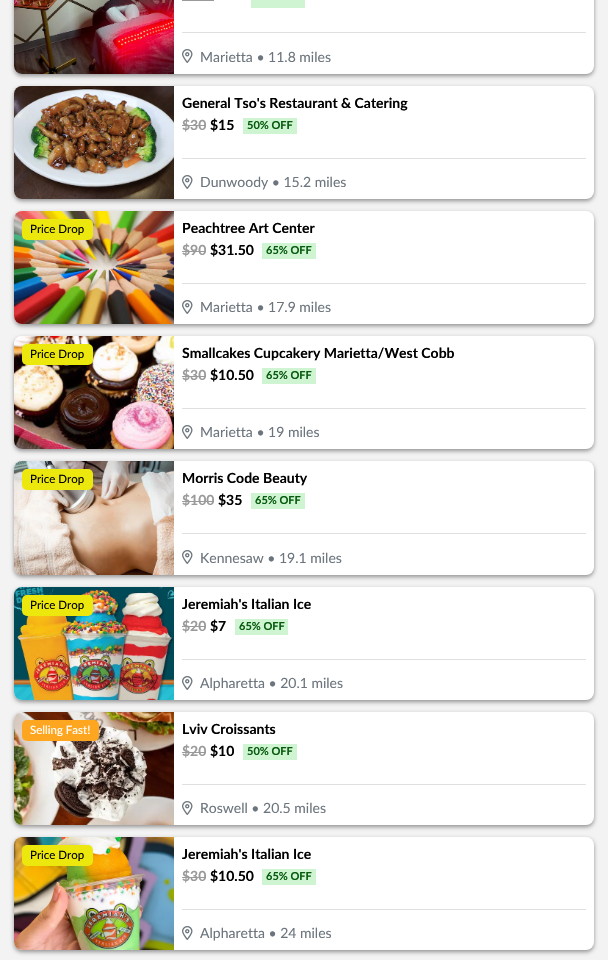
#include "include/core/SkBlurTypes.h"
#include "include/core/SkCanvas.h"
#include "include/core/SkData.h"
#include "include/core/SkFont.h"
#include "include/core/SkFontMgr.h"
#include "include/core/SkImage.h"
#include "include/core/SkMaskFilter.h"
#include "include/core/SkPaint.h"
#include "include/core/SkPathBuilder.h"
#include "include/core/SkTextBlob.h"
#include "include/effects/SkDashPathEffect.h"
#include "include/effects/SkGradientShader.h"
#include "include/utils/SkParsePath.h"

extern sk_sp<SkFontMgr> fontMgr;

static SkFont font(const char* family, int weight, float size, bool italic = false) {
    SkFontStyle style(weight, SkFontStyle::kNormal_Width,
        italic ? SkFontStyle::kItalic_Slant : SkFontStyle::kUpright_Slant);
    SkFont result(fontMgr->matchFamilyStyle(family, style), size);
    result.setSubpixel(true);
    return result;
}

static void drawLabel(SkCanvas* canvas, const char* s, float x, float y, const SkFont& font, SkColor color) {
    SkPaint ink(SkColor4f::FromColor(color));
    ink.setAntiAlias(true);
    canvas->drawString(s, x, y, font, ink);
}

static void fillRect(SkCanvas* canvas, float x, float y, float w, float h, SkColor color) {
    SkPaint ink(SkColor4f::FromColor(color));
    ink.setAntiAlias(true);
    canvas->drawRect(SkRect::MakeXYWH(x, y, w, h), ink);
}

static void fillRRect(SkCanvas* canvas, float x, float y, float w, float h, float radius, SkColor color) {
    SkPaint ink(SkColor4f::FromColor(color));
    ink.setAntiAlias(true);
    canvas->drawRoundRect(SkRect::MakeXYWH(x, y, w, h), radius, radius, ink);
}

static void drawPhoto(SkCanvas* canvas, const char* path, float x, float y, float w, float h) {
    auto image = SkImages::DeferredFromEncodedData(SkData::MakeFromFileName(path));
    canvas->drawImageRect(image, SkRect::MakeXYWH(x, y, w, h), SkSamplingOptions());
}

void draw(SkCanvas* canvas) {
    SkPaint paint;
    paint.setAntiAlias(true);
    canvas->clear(0xFFF3F3F4);
    paint.setColor(0x66000000);
    paint.setMaskFilter(SkMaskFilter::MakeBlur(kNormal_SkBlurStyle, 2));
    canvas->drawRoundRect(SkRect::MakeXYWH(14, -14, 580, 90), 8, 8, paint);
    paint.setMaskFilter(nullptr);
    fillRRect(canvas, 14, -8, 580, 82, 8, 0xFFFFFFFF);
    drawPhoto(canvas, "assets/img1.png", 14, 0, 160, 74);
    fillRect(canvas, 182, 0, 32, 1, 0xFF9A9A9A);
    fillRect(canvas, 251, 0, 54, 8, 0xFFCEF4D2);
    fillRect(canvas, 182, 32, 404, 1, 0xFFE0E0E0);
    drawPhoto(canvas, "assets/img2.png", 182, 49, 11, 14);
    SkFont font1 = font("Lato", 400, 14);
    drawLabel(canvas, "Marietta • 11.8 miles", 200, 62, font1, 0xFF6C757D);
    paint.setMaskFilter(SkMaskFilter::MakeBlur(kNormal_SkBlurStyle, 2));
    canvas->drawRoundRect(SkRect::MakeXYWH(14, 88, 580, 113), 8, 8, paint);
    paint.setMaskFilter(nullptr);
    fillRRect(canvas, 14, 86, 580, 113, 8, 0xFFFFFFFF);
    drawPhoto(canvas, "assets/img3.png", 14, 86, 160, 113);
    SkFont font2 = font("Lato", 700, 14);
    drawLabel(canvas, "General Tso's Restaurant & Catering", 182, 108, font2, 0xFF000000);
    drawLabel(canvas, "$30", 182, 130, font2, 0xFF9A9A9A);
    fillRect(canvas, 182, 125, 24, 1, 0xFF9A9A9A);
    drawLabel(canvas, "$15", 210, 130, font2, 0xFF000000);
    fillRect(canvas, 243, 118, 54, 16, 0xFFCEF4D2);
    SkFont font3 = font("Lato", 700, 11);
    drawLabel(canvas, "50% OFF", 247, 129, font3, 0xFF075A0E);
    fillRect(canvas, 182, 158, 404, 1, 0xFFE0E0E0);
    drawPhoto(canvas, "assets/img2.png", 182, 175, 11, 14);
    drawLabel(canvas, "Dunwoody • 15.2 miles", 200, 187, font1, 0xFF6C757D);
    paint.setMaskFilter(SkMaskFilter::MakeBlur(kNormal_SkBlurStyle, 2));
    canvas->drawRoundRect(SkRect::MakeXYWH(14, 213, 580, 113), 8, 8, paint);
    paint.setMaskFilter(nullptr);
    fillRRect(canvas, 14, 211, 580, 113, 8, 0xFFFFFFFF);
    drawPhoto(canvas, "assets/img4.png", 14, 211, 160, 113);
    drawLabel(canvas, "Peachtree Art Center", 182, 233, font2, 0xFF000000);
    drawLabel(canvas, "$90", 182, 255, font2, 0xFF9A9A9A);
    fillRect(canvas, 182, 251, 24, 1, 0xFF9A9A9A);
    drawLabel(canvas, "$31.50", 210, 255, font2, 0xFF000000);
    fillRect(canvas, 262, 243, 54, 16, 0xFFCEF4D2);
    drawLabel(canvas, "65% OFF", 266, 254, font3, 0xFF075A0E);
    fillRect(canvas, 182, 283, 404, 1, 0xFFE0E0E0);
    drawPhoto(canvas, "assets/img2.png", 182, 300, 11, 14);
    drawLabel(canvas, "Marietta • 17.9 miles", 200, 312, font1, 0xFF6C757D);
    fillRRect(canvas, 22, 219, 71, 21, 5, 0xFFECE80E);
    SkFont font4 = font("Lato", 400, 11.5f);
    drawLabel(canvas, "Price Drop", 30, 233, font4, 0xFF000000);
    paint.setMaskFilter(SkMaskFilter::MakeBlur(kNormal_SkBlurStyle, 2));
    canvas->drawRoundRect(SkRect::MakeXYWH(14, 338, 580, 113), 8, 8, paint);
    paint.setMaskFilter(nullptr);
    fillRRect(canvas, 14, 336, 580, 113, 8, 0xFFFFFFFF);
    drawPhoto(canvas, "assets/img5.png", 14, 336, 160, 113);
    drawLabel(canvas, "Smallcakes Cupcakery Marietta/West Cobb", 182, 358, font2, 0xFF000000);
    drawLabel(canvas, "$30", 182, 380, font2, 0xFF9A9A9A);
    fillRect(canvas, 182, 376, 24, 1, 0xFF9A9A9A);
    drawLabel(canvas, "$10.50", 210, 380, font2, 0xFF000000);
    fillRect(canvas, 262, 368, 54, 16, 0xFFCEF4D2);
    drawLabel(canvas, "65% OFF", 266, 379, font3, 0xFF075A0E);
    fillRect(canvas, 182, 408, 404, 1, 0xFFE0E0E0);
    drawPhoto(canvas, "assets/img2.png", 182, 425, 11, 14);
    drawLabel(canvas, "Marietta • 19 miles", 200, 437, font1, 0xFF6C757D);
    fillRRect(canvas, 22, 344, 71, 21, 5, 0xFFECE80E);
    drawLabel(canvas, "Price Drop", 30, 358, font4, 0xFF000000);
    paint.setMaskFilter(SkMaskFilter::MakeBlur(kNormal_SkBlurStyle, 2));
    canvas->drawRoundRect(SkRect::MakeXYWH(14, 463, 580, 114), 8, 8, paint);
    paint.setMaskFilter(nullptr);
    fillRRect(canvas, 14, 461, 580, 114, 8, 0xFFFFFFFF);
    drawPhoto(canvas, "assets/img6.png", 14, 461, 160, 114);
    drawLabel(canvas, "Morris Code Beauty", 182, 483, font2, 0xFF000000);
    drawLabel(canvas, "$100", 182, 505, font2, 0xFF9A9A9A);
    fillRect(canvas, 182, 501, 32, 1, 0xFF9A9A9A);
    drawLabel(canvas, "$35", 218, 505, font2, 0xFF000000);
    fillRect(canvas, 251, 493, 54, 16, 0xFFCEF4D2);
    drawLabel(canvas, "65% OFF", 255, 504, font3, 0xFF075A0E);
    fillRect(canvas, 182, 533, 404, 1, 0xFFE0E0E0);
    drawPhoto(canvas, "assets/img2.png", 182, 550, 11, 14);
    drawLabel(canvas, "Kennesaw • 19.1 miles", 200, 563, font1, 0xFF6C757D);
    fillRRect(canvas, 22, 469, 71, 21, 5, 0xFFECE80E);
    drawLabel(canvas, "Price Drop", 30, 483, font4, 0xFF000000);
    paint.setMaskFilter(SkMaskFilter::MakeBlur(kNormal_SkBlurStyle, 2));
    canvas->drawRoundRect(SkRect::MakeXYWH(14, 589, 580, 113), 8, 8, paint);
    paint.setMaskFilter(nullptr);
    fillRRect(canvas, 14, 587, 580, 113, 8, 0xFFFFFFFF);
    drawPhoto(canvas, "assets/img7.png", 14, 587, 160, 113);
    drawLabel(canvas, "Jeremiah's Italian Ice", 182, 609, font2, 0xFF000000);
    drawLabel(canvas, "$20", 182, 631, font2, 0xFF9A9A9A);
    fillRect(canvas, 182, 626, 24, 1, 0xFF9A9A9A);
    drawLabel(canvas, "$7", 210, 631, font2, 0xFF000000);
    fillRect(canvas, 235, 619, 53, 16, 0xFFCEF4D2);
    drawLabel(canvas, "65% OFF", 239, 630, font3, 0xFF075A0E);
    fillRect(canvas, 182, 659, 404, 1, 0xFFE0E0E0);
    drawPhoto(canvas, "assets/img2.png", 182, 676, 11, 14);
    drawLabel(canvas, "Alpharetta • 20.1 miles", 200, 688, font1, 0xFF6C757D);
    fillRRect(canvas, 22, 595, 71, 21, 5, 0xFFECE80E);
    drawLabel(canvas, "Price Drop", 30, 609, font4, 0xFF000000);
    paint.setMaskFilter(SkMaskFilter::MakeBlur(kNormal_SkBlurStyle, 2));
    canvas->drawRoundRect(SkRect::MakeXYWH(14, 714, 580, 113), 8, 8, paint);
    paint.setMaskFilter(nullptr);
    fillRRect(canvas, 14, 712, 580, 113, 8, 0xFFFFFFFF);
    drawPhoto(canvas, "assets/img8.png", 14, 712, 160, 113);
    drawLabel(canvas, "Lviv Croissants", 182, 734, font2, 0xFF000000);
    drawLabel(canvas, "$20", 182, 756, font2, 0xFF9A9A9A);
    fillRect(canvas, 182, 752, 24, 1, 0xFF9A9A9A);
    drawLabel(canvas, "$10", 210, 756, font2, 0xFF000000);
    fillRect(canvas, 243, 744, 54, 16, 0xFFCEF4D2);
    drawLabel(canvas, "50% OFF", 247, 755, font3, 0xFF075A0E);
    fillRect(canvas, 182, 784, 404, 1, 0xFFE0E0E0);
    drawPhoto(canvas, "assets/img2.png", 182, 801, 11, 14);
    drawLabel(canvas, "Roswell • 20.5 miles", 200, 813, font1, 0xFF6C757D);
    fillRRect(canvas, 22, 720, 77, 21, 5, 0xFFFFA620);
    drawLabel(canvas, "Selling Fast!", 30, 734, font4, 0xFFFFFFFF);
    paint.setMaskFilter(SkMaskFilter::MakeBlur(kNormal_SkBlurStyle, 2));
    canvas->drawRoundRect(SkRect::MakeXYWH(14, 839, 580, 113), 8, 8, paint);
    paint.setMaskFilter(nullptr);
    fillRRect(canvas, 14, 837, 580, 113, 8, 0xFFFFFFFF);
    drawPhoto(canvas, "assets/img9.png", 14, 837, 160, 113);
    drawLabel(canvas, "Jeremiah's Italian Ice", 182, 859, font2, 0xFF000000);
    drawLabel(canvas, "$30", 182, 881, font2, 0xFF9A9A9A);
    fillRect(canvas, 182, 877, 24, 1, 0xFF9A9A9A);
    drawLabel(canvas, "$10.50", 210, 881, font2, 0xFF000000);
    fillRect(canvas, 262, 869, 54, 16, 0xFFCEF4D2);
    drawLabel(canvas, "65% OFF", 266, 880, font3, 0xFF075A0E);
    fillRect(canvas, 182, 909, 404, 1, 0xFFE0E0E0);
    drawPhoto(canvas, "assets/img2.png", 182, 926, 11, 14);
    drawLabel(canvas, "Alpharetta • 24 miles", 200, 938, font1, 0xFF6C757D);
    fillRRect(canvas, 22, 845, 71, 21, 5, 0xFFECE80E);
    drawLabel(canvas, "Price Drop", 30, 859, font4, 0xFF000000);
}
